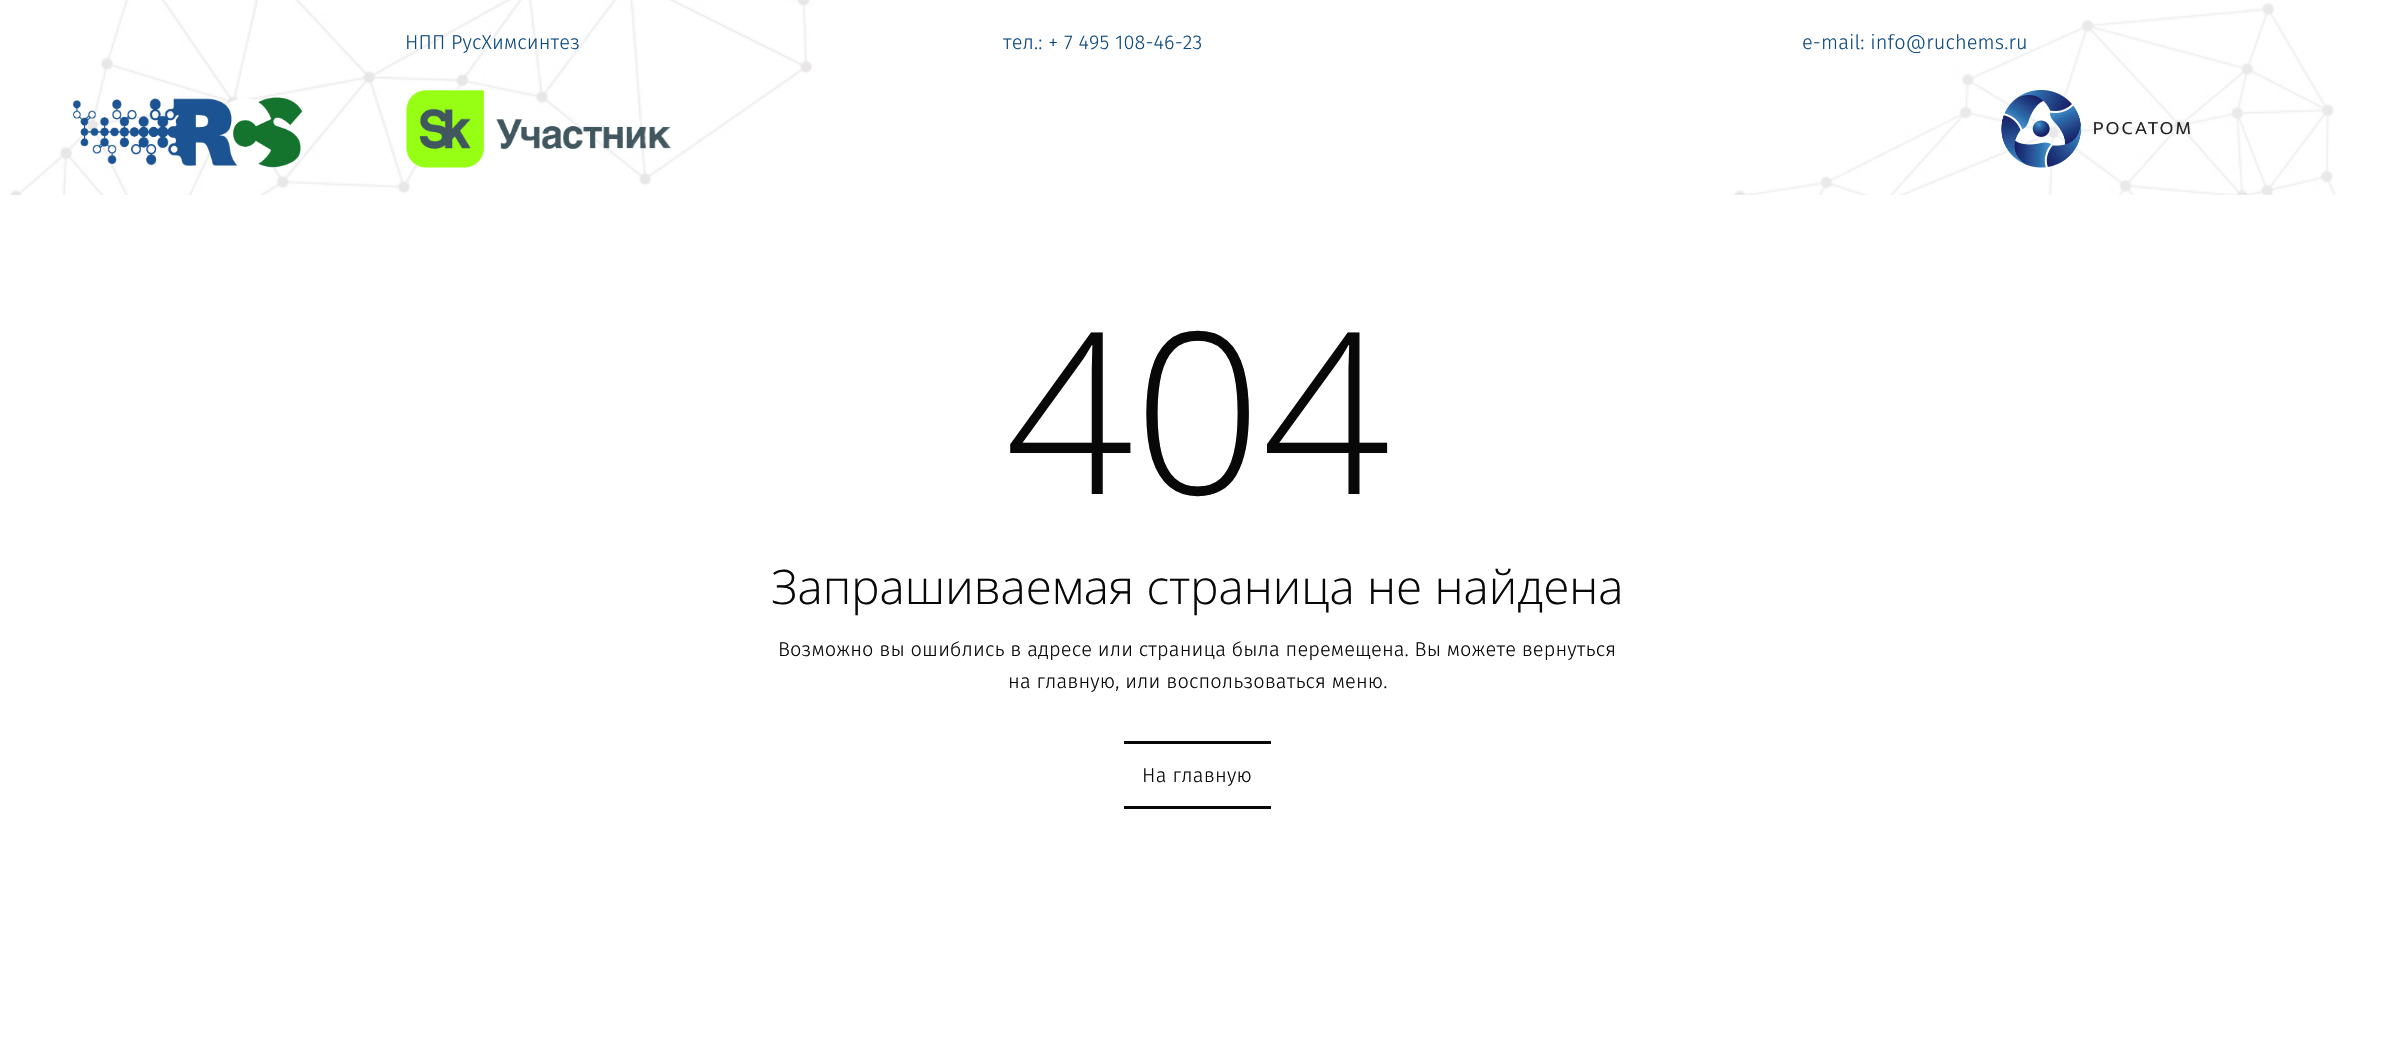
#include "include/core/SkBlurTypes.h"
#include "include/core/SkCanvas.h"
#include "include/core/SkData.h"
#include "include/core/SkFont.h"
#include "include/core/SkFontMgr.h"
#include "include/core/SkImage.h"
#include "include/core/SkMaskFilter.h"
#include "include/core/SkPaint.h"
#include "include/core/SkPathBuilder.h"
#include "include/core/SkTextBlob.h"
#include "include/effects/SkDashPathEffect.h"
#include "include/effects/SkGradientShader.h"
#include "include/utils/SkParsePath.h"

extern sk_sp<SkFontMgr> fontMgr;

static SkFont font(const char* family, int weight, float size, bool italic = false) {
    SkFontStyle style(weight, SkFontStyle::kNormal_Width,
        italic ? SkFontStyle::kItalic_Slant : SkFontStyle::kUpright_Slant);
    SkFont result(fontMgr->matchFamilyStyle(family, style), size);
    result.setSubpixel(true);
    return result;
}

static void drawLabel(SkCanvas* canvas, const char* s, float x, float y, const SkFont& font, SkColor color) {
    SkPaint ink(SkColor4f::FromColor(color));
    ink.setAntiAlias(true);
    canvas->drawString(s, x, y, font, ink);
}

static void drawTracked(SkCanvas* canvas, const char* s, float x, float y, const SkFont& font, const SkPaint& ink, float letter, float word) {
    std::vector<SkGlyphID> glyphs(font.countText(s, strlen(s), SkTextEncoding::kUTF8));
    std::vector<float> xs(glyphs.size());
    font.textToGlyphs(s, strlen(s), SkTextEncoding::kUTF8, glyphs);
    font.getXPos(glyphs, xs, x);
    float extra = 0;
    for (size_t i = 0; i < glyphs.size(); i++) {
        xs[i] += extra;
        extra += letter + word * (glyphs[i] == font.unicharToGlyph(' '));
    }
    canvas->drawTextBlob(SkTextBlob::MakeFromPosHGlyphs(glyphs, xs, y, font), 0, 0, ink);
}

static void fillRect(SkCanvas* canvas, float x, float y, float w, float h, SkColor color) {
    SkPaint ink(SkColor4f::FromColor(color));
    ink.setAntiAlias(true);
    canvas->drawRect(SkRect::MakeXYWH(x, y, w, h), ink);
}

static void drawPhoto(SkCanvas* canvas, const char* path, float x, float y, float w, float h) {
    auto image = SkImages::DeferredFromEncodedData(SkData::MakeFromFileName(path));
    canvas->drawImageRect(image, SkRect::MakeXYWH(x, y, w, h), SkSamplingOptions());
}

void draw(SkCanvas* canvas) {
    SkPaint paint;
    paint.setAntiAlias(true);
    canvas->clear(0xFFFFFFFF);
    drawPhoto(canvas, "assets/img1.png", 0, 0, 2394, 195);
    SkFont font1 = font("Fira Sans", 300, 20);
    paint.setColor(0xFF0E4B80);
    drawTracked(canvas, "НПП РусХимсинтез", 405, 49, font1, paint, 0.12f, 0);
    drawTracked(canvas, "тел.: + 7 495 108-46-23", 1003, 49, font1, paint, 0.12f, 0);
    drawTracked(canvas, "e-mail: info@ruchems.ru", 1802, 49, font1, paint, 0.12f, 0);
    drawPhoto(canvas, "assets/img2.png", 72, 97, 231, 71);
    drawPhoto(canvas, "assets/img3.png", 406, 90, 265, 78);
    drawPhoto(canvas, "assets/img4.png", 2001, 90, 189, 78);
    SkFont font2 = font("Open Sans", 300, 225);
    drawLabel(canvas, "404", 1005, 494, font2, 0xFF080808);
    SkFont font3 = font("Open Sans", 300, 47.5f);
    drawLabel(canvas, "Запрашиваемая страница не найдена", 771, 604, font3, 0xFF080808);
    paint.setColor(0xFF080808);
    drawTracked(canvas, "Возможно вы ошиблись в адресе или страница была перемещена. Вы можете вернуться", 778, 656, font1, paint, 0.12f, 0);
    drawTracked(canvas, "на главную, или воспользоваться меню.", 1008, 688, font1, paint, 0.12f, 0);
    fillRect(canvas, 1124, 741, 147, 3, 0xFF080808);
    fillRect(canvas, 1124, 806, 147, 3, 0xFF080808);
    drawTracked(canvas, "На главную", 1142, 782, font1, paint, 0.25f, 0);
}
